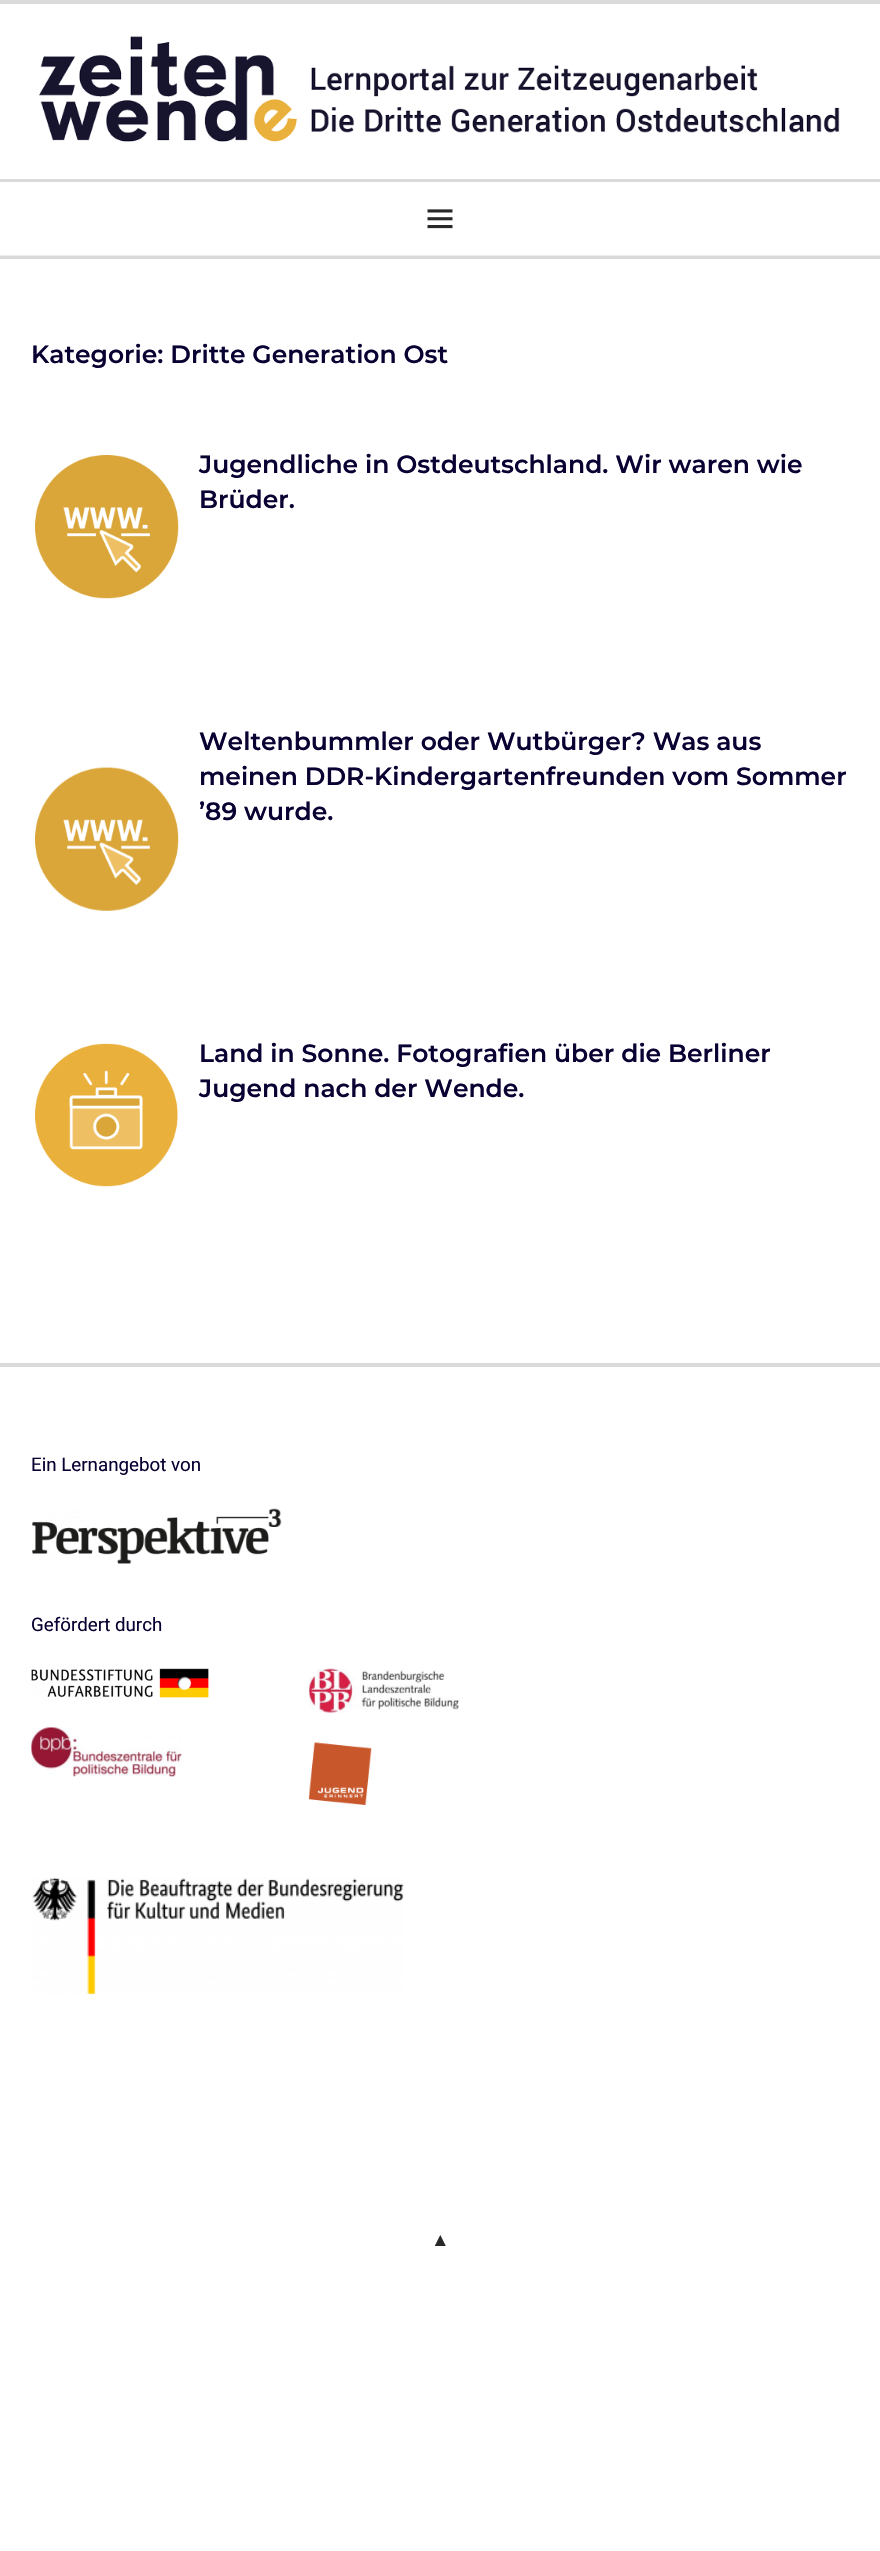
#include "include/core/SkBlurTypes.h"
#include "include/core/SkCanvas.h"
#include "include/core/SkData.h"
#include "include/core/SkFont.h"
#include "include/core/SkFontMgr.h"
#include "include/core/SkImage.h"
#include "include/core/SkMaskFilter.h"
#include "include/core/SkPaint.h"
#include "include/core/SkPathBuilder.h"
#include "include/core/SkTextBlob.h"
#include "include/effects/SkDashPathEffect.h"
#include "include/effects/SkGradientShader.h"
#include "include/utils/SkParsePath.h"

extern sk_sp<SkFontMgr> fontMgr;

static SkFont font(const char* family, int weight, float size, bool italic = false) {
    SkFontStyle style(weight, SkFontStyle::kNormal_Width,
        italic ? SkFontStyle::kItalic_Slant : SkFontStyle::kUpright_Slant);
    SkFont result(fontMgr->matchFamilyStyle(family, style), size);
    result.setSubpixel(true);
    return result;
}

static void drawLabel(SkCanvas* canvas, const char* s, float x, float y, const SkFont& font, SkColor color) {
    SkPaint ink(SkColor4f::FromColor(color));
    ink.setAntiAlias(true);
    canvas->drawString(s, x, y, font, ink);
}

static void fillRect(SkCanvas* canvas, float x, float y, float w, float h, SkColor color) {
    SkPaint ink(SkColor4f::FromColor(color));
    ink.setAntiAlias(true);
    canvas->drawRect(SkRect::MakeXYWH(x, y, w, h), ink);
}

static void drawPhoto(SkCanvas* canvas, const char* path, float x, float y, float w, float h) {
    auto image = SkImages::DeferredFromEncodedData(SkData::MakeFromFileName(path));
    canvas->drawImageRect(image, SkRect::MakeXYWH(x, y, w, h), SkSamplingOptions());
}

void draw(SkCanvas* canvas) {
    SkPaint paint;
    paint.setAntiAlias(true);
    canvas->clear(0xFFFFFFFF);
    fillRect(canvas, 0, 256, 880, 3, 0xFFDADADA);
    fillRect(canvas, 0, 0, 880, 4, 0xFFDADADA);
    fillRect(canvas, 0, 179, 880, 3, 0xFFDADADA);
    drawPhoto(canvas, "assets/img1.png", 39, 36, 801, 106);
    fillRect(canvas, 0, 255, 880, 1, 0xFFEDEDEE);
    drawPhoto(canvas, "assets/img2.png", 427, 209, 26, 20);
    SkFont font1 = font("Montserrat", 600, 25);
    drawLabel(canvas, "Kategorie: Dritte Generation Ost", 31, 363, font1, 0xFF0A0032);
    drawPhoto(canvas, "assets/img3.png", 35, 455, 144, 144);
    drawLabel(canvas, "Jugendliche in Ostdeutschland. Wir waren wie", 199, 473, font1, 0xFF0A0032);
    drawLabel(canvas, "Brüder.", 199, 508, font1, 0xFF0A0032);
    drawPhoto(canvas, "assets/img4.png", 35, 767, 144, 144);
    drawLabel(canvas, "Weltenbummler oder Wutbürger? Was aus", 199, 750, font1, 0xFF0A0032);
    drawLabel(canvas, "meinen DDR-Kindergartenfreunden vom Sommer", 199, 785, font1, 0xFF0A0032);
    drawLabel(canvas, "’89 wurde.", 199, 820, font1, 0xFF0A0032);
    drawPhoto(canvas, "assets/img5.png", 35, 1043, 143, 144);
    drawLabel(canvas, "Land in Sonne. Fotografien über die Berliner", 199, 1062, font1, 0xFF0A0032);
    drawLabel(canvas, "Jugend nach der Wende.", 199, 1097, font1, 0xFF0A0032);
    fillRect(canvas, 0, 1363, 880, 4, 0xFFDADADA);
    SkFont font2 = font("Roboto", 400, 18.75f);
    drawLabel(canvas, "Ein Lernangebot von", 31, 1471, font2, 0xFF0A0032);
    drawPhoto(canvas, "assets/img6.png", 32, 1508, 250, 56);
    drawLabel(canvas, "Gefördert durch", 31, 1631, font2, 0xFF0A0032);
    drawPhoto(canvas, "assets/img7.png", 31, 1668, 178, 30);
    drawPhoto(canvas, "assets/img8.png", 31, 1727, 151, 50);
    drawPhoto(canvas, "assets/img9.png", 308, 1668, 151, 45);
    drawPhoto(canvas, "assets/img10.png", 308, 1742, 64, 63);
    drawPhoto(canvas, "assets/img11.png", 32, 1877, 372, 118);
    SkFont font3 = font("Liberation Sans", 400, 18.75f);
    drawLabel(canvas, "▲", 431, 2246, font3, 0xFF282828);
}
